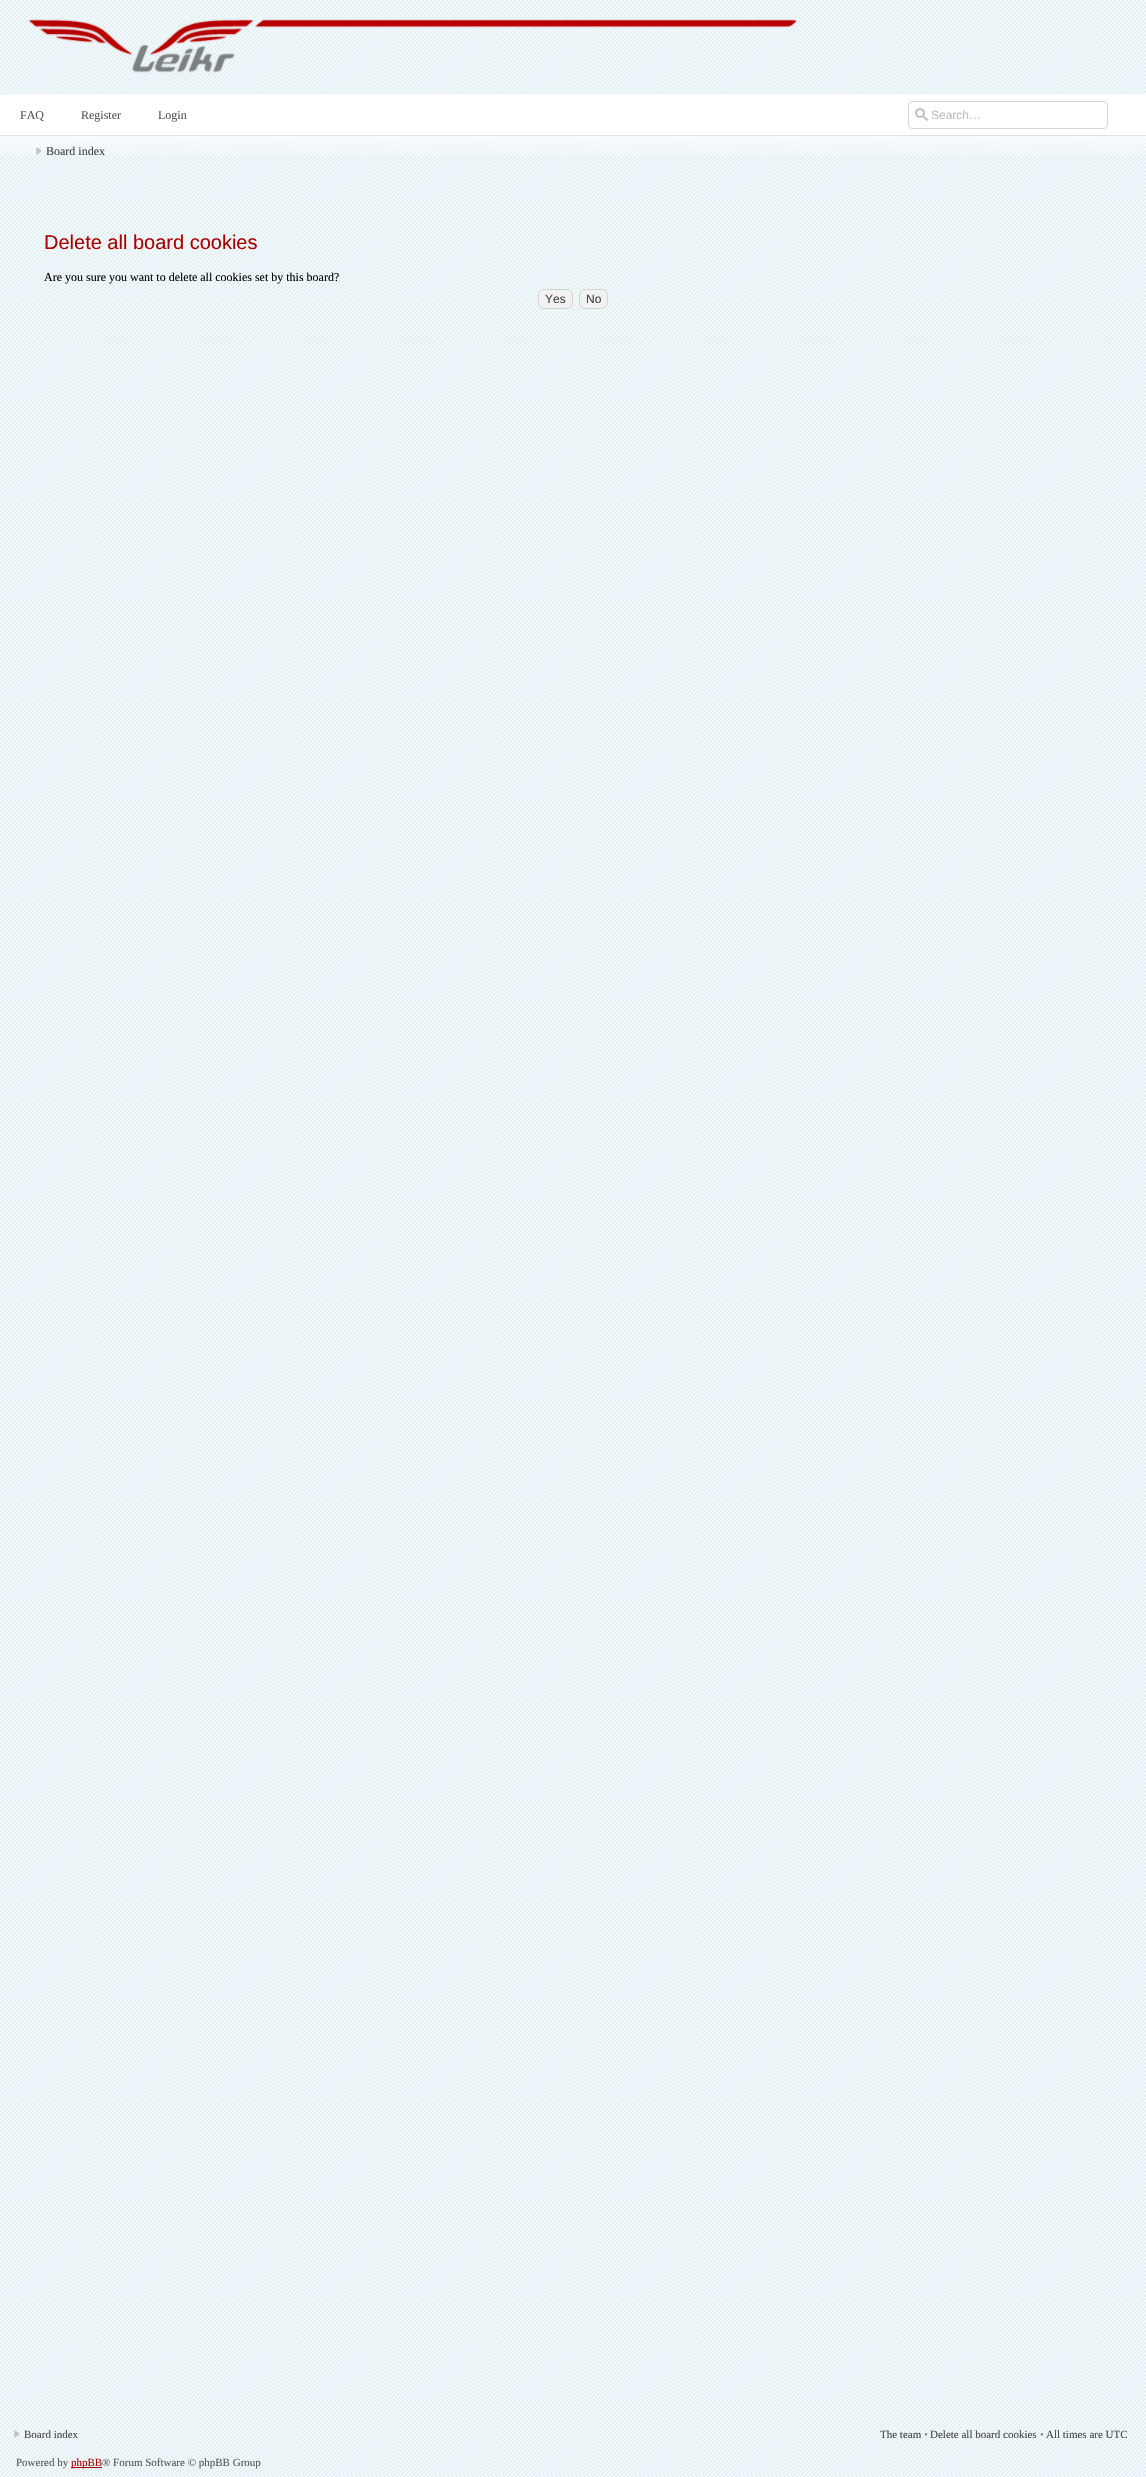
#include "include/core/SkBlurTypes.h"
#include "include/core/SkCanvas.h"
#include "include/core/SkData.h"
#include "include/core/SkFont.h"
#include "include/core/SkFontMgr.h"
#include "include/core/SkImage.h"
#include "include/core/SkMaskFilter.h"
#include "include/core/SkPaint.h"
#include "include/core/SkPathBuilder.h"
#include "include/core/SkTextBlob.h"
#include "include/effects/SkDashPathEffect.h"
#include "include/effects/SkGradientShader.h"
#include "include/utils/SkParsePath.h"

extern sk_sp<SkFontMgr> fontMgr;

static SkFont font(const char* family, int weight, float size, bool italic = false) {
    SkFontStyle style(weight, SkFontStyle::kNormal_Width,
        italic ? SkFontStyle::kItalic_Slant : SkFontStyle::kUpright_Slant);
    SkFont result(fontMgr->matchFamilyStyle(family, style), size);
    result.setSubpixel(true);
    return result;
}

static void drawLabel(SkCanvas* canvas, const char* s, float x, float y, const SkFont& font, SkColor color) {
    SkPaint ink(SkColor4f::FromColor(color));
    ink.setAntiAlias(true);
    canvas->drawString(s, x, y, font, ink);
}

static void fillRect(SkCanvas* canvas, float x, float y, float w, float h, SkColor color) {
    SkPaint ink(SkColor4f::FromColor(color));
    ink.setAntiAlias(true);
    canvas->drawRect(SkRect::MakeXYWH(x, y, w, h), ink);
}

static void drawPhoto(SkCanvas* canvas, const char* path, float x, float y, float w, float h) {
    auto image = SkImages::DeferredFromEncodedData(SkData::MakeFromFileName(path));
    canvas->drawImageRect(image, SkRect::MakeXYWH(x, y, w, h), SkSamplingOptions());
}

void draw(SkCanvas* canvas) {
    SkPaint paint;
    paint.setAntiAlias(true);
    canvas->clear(0xFFFFFFFF);
    drawPhoto(canvas, "assets/img1.png", 0, 0, 1146, 2477);
    fillRect(canvas, 10, 94, 1136, 1, 0xFFFFFFFF);
    drawPhoto(canvas, "assets/img2.png", 28, 18, 770, 56);
    fillRect(canvas, 0, 95, 1146, 40, 0xFFFFFFFF);
    SkFont font1 = font("Liberation Serif", 400, 12);
    drawLabel(canvas, "FAQ", 20, 119, font1, 0xFF555555);
    drawLabel(canvas, "Register", 81, 119, font1, 0xFF555555);
    drawLabel(canvas, "Login", 158, 119, font1, 0xFF555555);
    drawPhoto(canvas, "assets/img3.png", 908, 101, 200, 28);
    SkFont font2 = font("Liberation Sans", 400, 12);
    drawLabel(canvas, "Search…", 931, 119, font2, 0xFFBBBBBB);
    drawPhoto(canvas, "assets/img4.png", 0, 136, 1146, 20);
    fillRect(canvas, 0, 135, 1146, 1, 0xFFE2E2E2);
    drawPhoto(canvas, "assets/img5.png", 36, 147, 6, 8);
    drawLabel(canvas, "Board index", 46, 155, font1, 0xFF444444);
    fillRect(canvas, 30, 338, 1086, 1, 0xFFEEEEEE);
    SkFont font3 = font("Liberation Sans", 400, 20);
    drawLabel(canvas, "Delete all board cookies", 44, 249, font3, 0xFFAA0000);
    drawLabel(canvas, "Are you sure you want to delete all cookies set by this board?", 44, 281, font1, 0xFF000000);
    paint.setColor(0xFFF2F2F2);
    canvas->drawRoundRect(SkRect::MakeXYWH(538.5f, 289.5f, 34, 19), 5.5f, 5.5f, paint);
    paint.setStroke(true);
    paint.setStrokeWidth(1);
    paint.setColor(0xFFD4D4D4);
    canvas->drawRoundRect(SkRect::MakeXYWH(538.5f, 289.5f, 34, 19), 5.5f, 5.5f, paint);
    drawLabel(canvas, "Yes", 545, 303, font2, 0xFF444444);
    paint.setStroke(false);
    paint.setColor(0xFFF2F2F2);
    canvas->drawRoundRect(SkRect::MakeXYWH(579.5f, 289.5f, 28, 19), 5.5f, 5.5f, paint);
    paint.setStroke(true);
    paint.setColor(0xFFD4D4D4);
    canvas->drawRoundRect(SkRect::MakeXYWH(579.5f, 289.5f, 28, 19), 5.5f, 5.5f, paint);
    drawLabel(canvas, "No", 586, 303, font2, 0xFF444444);
    drawPhoto(canvas, "assets/img6.png", 14, 2430, 6, 8);
    SkFont font4 = font("Liberation Serif", 400, 11);
    drawLabel(canvas, "Board index", 24, 2438, font4, 0xFF444444);
    drawLabel(canvas, "The team", 880, 2438, font4, 0xFF444444);
    drawLabel(canvas, "•", 924, 2438, font4, 0xFF888888);
    drawLabel(canvas, "Delete all board cookies", 930, 2438, font4, 0xFF444444);
    drawLabel(canvas, "•", 1040, 2438, font4, 0xFF888888);
    drawLabel(canvas, "All times are UTC", 1046, 2438, font4, 0xFF444444);
    drawLabel(canvas, "Powered by", 16, 2466, font4, 0xFF555555);
    fillRect(canvas, 71, 2467, 31, 1, 0xFFAA0000);
    drawLabel(canvas, "phpBB", 71, 2466, font4, 0xFFAA0000);
    drawLabel(canvas, "® Forum Software © phpBB Group", 102, 2466, font4, 0xFF555555);
}
